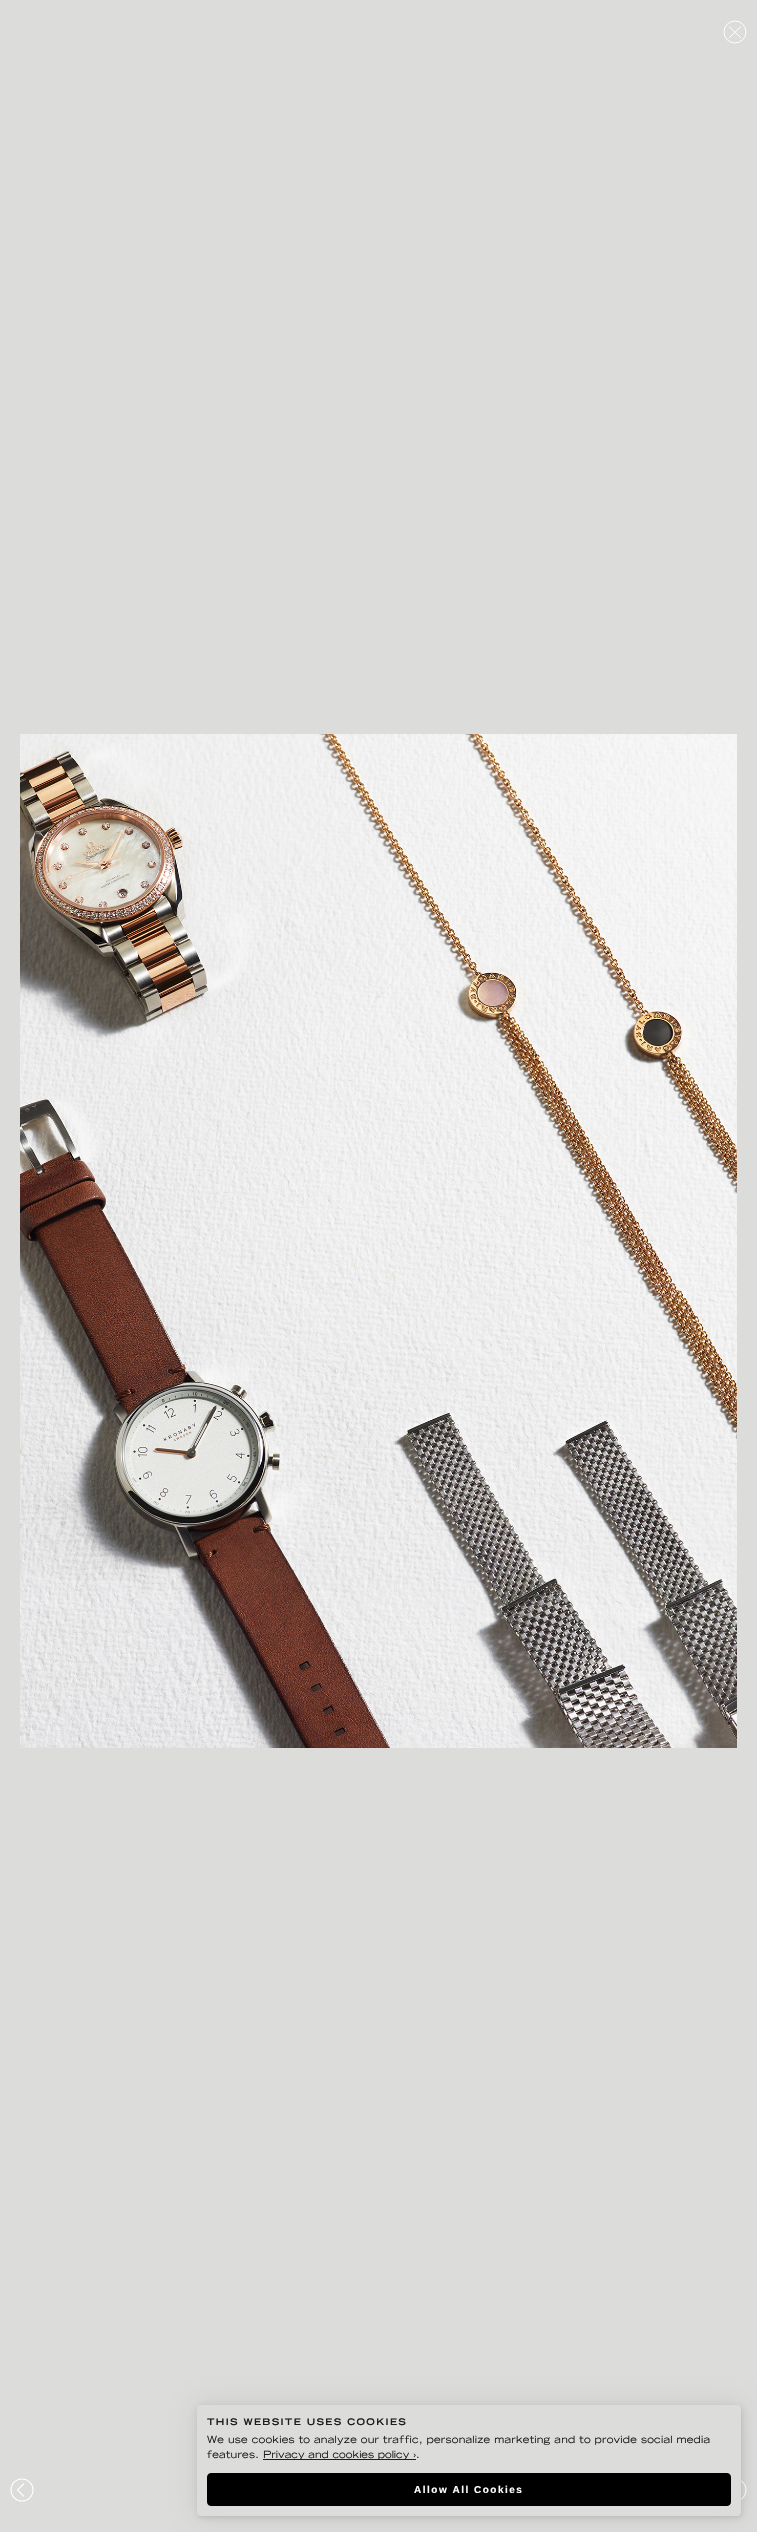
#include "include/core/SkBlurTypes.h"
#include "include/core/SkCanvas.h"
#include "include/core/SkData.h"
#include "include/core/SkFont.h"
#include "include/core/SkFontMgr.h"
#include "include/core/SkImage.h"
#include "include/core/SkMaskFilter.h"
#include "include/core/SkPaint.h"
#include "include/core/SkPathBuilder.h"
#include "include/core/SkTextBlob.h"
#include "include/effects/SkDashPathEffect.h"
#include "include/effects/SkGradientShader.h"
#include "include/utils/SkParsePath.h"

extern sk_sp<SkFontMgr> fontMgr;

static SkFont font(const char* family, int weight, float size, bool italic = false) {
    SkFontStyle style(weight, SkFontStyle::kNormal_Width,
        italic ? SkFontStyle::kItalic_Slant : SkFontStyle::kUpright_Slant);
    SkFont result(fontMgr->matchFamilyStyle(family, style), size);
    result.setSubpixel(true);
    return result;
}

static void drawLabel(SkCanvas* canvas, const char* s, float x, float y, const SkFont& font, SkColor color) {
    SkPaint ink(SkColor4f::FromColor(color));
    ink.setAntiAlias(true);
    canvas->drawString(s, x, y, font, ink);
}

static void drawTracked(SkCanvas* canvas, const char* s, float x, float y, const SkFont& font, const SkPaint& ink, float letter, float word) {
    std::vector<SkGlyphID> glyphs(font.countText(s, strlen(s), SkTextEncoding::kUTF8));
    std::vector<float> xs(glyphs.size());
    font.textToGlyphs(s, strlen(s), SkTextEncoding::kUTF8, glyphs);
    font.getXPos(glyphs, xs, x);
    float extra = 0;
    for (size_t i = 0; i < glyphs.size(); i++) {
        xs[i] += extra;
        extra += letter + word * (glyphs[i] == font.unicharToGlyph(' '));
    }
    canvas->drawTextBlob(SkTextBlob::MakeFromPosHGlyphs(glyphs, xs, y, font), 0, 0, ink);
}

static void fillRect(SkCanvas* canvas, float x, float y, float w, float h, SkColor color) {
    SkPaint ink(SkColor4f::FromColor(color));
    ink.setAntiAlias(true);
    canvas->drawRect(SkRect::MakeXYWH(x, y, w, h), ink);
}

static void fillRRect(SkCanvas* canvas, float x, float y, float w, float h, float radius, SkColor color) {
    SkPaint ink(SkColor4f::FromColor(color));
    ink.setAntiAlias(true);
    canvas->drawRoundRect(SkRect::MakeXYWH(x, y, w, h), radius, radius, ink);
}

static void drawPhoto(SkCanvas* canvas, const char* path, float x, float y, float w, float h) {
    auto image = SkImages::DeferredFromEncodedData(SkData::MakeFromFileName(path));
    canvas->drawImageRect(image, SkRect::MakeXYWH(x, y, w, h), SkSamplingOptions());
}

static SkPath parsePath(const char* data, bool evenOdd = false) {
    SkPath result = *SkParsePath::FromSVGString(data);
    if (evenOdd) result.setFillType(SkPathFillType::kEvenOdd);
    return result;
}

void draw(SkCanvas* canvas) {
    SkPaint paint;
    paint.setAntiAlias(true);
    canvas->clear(0xFFDCDCDA);
    paint.setStroke(true);
    paint.setStrokeWidth(1);
    paint.setColor(0xFFFFFFFF);
    canvas->drawCircle(735, 32, 11, paint);
    canvas->drawPath(parsePath("M729 38L741 26.5M741 38L729 26.5"), paint);
    drawPhoto(canvas, "assets/img1.png", 20, 734, 717, 1014);
    paint.setStrokeWidth(1.1f);
    canvas->drawCircle(22, 2490, 11, paint);
    canvas->drawPath(parsePath("M24 2483.5L17.5 2490L24 2496.5"), paint);
    canvas->drawCircle(735, 2490, 11, paint);
    paint.setStroke(false);
    paint.setColor(0x1A000000);
    paint.setMaskFilter(SkMaskFilter::MakeBlur(kNormal_SkBlurStyle, 2.5f));
    canvas->drawRoundRect(SkRect::MakeXYWH(198, 2407, 544, 111), 4, 4, paint);
    paint.setMaskFilter(nullptr);
    paint.setMaskFilter(SkMaskFilter::MakeBlur(kNormal_SkBlurStyle, 12.5f));
    canvas->drawRoundRect(SkRect::MakeXYWH(197, 2405, 544, 111), 4, 4, paint);
    paint.setMaskFilter(nullptr);
    fillRRect(canvas, 197, 2405, 544, 111, 4, 0xFFDCDCDA);
    SkFont font1 = font("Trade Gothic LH", 700, 9);
    paint.setColor(0xFF1E1E1E);
    drawTracked(canvas, "THIS WEBSITE USES COOKIES", 207, 2425, font1, paint, 1.35f, 0);
    SkFont font2 = font("Trade Gothic LH", 400, 10);
    drawTracked(canvas, "We use cookies to analyze our traffic, personalize marketing and to provide social media", 207, 2443, font2, paint, 0.2f, 0);
    drawTracked(canvas, "features.", 207, 2458, font2, paint, 0.2f, 0);
    fillRect(canvas, 263, 2459, 153, 1, 0xFF1E1E1E);
    drawLabel(canvas, "Privacy and cookies policy ›", 263, 2458, font2, 0xFF1E1E1E);
    drawTracked(canvas, ".", 416, 2458, font2, paint, 0.2f, 0);
    paint.setColor(0xFF000000);
    canvas->drawRoundRect(SkRect::MakeXYWH(207.5f, 2473.5f, 523, 32), 3.5f, 3.5f, paint);
    paint.setStroke(true);
    paint.setStrokeWidth(1);
    canvas->drawRoundRect(SkRect::MakeXYWH(207.5f, 2473.5f, 523, 32), 3.5f, 3.5f, paint);
    SkFont font3 = font("Liberation Sans", 700, 10);
    paint.setStroke(false);
    paint.setColor(0xFFFFFFFF);
    drawTracked(canvas, "Allow All Cookies", 414, 2493, font3, paint, 1.5f, 0);
}
